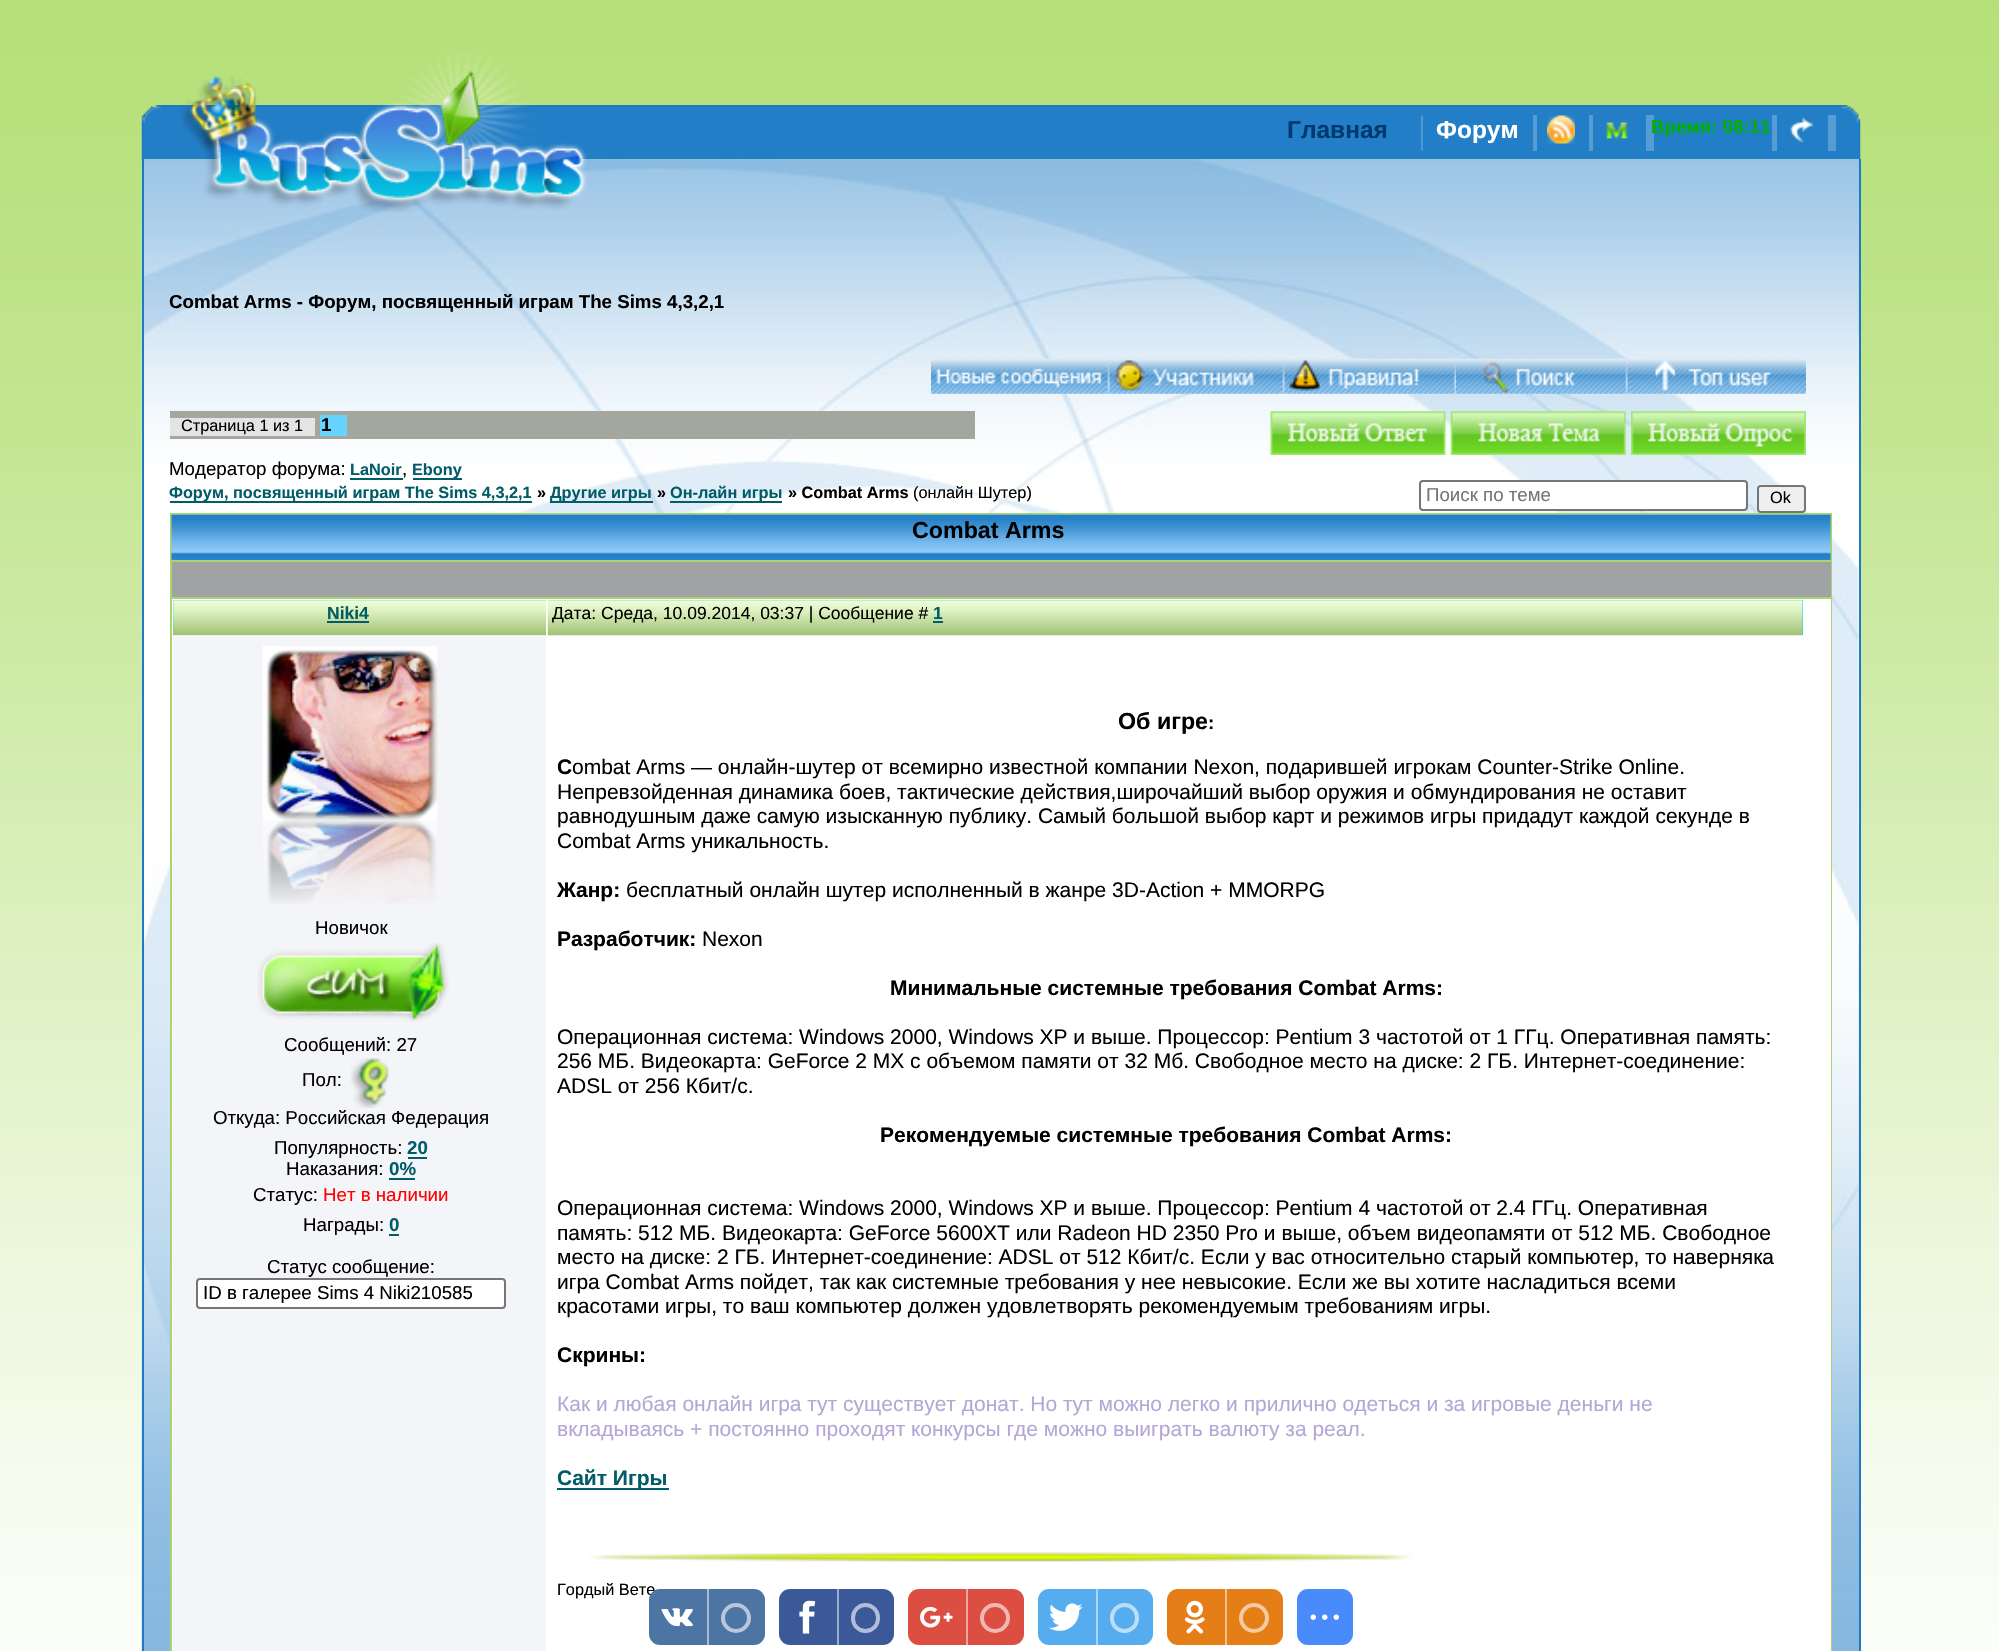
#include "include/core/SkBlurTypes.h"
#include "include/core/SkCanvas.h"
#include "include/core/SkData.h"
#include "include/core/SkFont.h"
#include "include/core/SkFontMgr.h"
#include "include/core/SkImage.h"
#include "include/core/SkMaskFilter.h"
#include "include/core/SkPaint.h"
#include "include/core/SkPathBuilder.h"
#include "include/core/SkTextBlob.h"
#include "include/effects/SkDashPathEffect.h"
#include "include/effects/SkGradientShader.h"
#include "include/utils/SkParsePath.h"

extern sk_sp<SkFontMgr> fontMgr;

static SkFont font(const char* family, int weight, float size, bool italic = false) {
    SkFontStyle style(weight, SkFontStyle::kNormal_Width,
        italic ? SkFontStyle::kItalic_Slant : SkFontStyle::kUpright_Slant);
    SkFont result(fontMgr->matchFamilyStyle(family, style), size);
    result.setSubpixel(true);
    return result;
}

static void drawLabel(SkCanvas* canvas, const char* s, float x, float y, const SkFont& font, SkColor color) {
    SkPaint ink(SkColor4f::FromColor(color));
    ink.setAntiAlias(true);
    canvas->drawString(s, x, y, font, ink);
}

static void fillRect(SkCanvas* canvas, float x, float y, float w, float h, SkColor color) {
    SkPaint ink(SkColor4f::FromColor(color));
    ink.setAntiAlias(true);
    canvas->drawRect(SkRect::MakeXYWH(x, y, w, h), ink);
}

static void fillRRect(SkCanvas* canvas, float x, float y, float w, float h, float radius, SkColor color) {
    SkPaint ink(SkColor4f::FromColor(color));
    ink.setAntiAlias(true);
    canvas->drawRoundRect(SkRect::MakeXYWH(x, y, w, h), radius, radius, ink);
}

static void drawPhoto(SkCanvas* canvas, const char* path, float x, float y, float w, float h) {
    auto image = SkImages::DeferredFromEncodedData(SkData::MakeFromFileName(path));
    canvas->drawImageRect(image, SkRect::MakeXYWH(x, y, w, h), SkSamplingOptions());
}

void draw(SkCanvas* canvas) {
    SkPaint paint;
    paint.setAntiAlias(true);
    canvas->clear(0xFFFFFFFF);
    drawPhoto(canvas, "assets/img1.png", 0, 0, 1999, 1651);
    drawPhoto(canvas, "assets/img3.png", 141, 105, 1720, 55);
    drawPhoto(canvas, "assets/img8.png", 141, 159, 1718, 1492);
    drawPhoto(canvas, "assets/img2.png", 181, 50, 406, 163);
    SkFont font1 = font("Liberation Sans", 700, 24.5f);
    drawLabel(canvas, "Главная", 1287, 138, font1, 0xFF00396F);
    drawPhoto(canvas, "assets/img4.png", 1421, 115, 2, 36);
    drawLabel(canvas, "Форум", 1436, 138, font1, 0xFFFFFFFF);
    fillRect(canvas, 1533, 115, 4, 36, 0xFF559CD3);
    drawPhoto(canvas, "assets/img5.png", 1547, 115, 28, 29);
    fillRect(canvas, 1589, 115, 4, 36, 0xFF559CD3);
    drawPhoto(canvas, "assets/img6.png", 1606, 122, 22, 17);
    fillRect(canvas, 1646, 115, 8, 36, 0xFF559CD3);
    SkFont font2 = font("Liberation Sans", 700, 18.7f);
    drawLabel(canvas, "Время: 08:11", 1651, 133, font2, 0xFF00B100);
    fillRect(canvas, 1772, 115, 5, 36, 0xFF559CD3);
    drawPhoto(canvas, "assets/img7.png", 1790, 117, 24, 26);
    fillRect(canvas, 1828, 115, 8, 36, 0xFF559CD3);
    fillRect(canvas, 1859, 159, 2, 1492, 0xFF207AC2);
    fillRect(canvas, 142, 159, 2, 1492, 0xFF207AC2);
    drawLabel(canvas, "Combat Arms - Форум, посвященный играм The Sims 4,3,2,1", 169, 308, font2, 0xFF000000);
    drawPhoto(canvas, "assets/img9.png", 931, 358, 175, 36);
    drawPhoto(canvas, "assets/img10.png", 1106, 359, 175, 35);
    drawPhoto(canvas, "assets/img11.png", 1281, 358, 175, 36);
    drawPhoto(canvas, "assets/img12.png", 1456, 358, 175, 36);
    drawPhoto(canvas, "assets/img13.png", 1631, 359, 175, 35);
    fillRect(canvas, 170, 411, 805, 28, 0xFFA4A79E);
    fillRect(canvas, 170, 418, 145, 18, 0xFFE4E4E4);
    SkFont font3 = font("Liberation Sans", 400, 16.3f);
    drawLabel(canvas, "Страница 1 из 1", 181, 431, font3, 0xFF000000);
    fillRect(canvas, 320, 415, 27, 21, 0xFF66D4FF);
    drawLabel(canvas, "1", 321, 431, font2, 0xFF000000);
    drawPhoto(canvas, "assets/img14.png", 1270, 411, 176, 44);
    drawPhoto(canvas, "assets/img15.png", 1450, 411, 176, 44);
    drawPhoto(canvas, "assets/img16.png", 1631, 411, 175, 44);
    SkFont font4 = font("Liberation Sans", 400, 18.7f);
    drawLabel(canvas, "Модератор форума:", 169, 475, font4, 0xFF000000);
    SkFont font5 = font("Liberation Sans", 700, 16.3f);
    drawLabel(canvas, "LaNoir", 350, 475, font5, 0xFF005D68);
    drawLabel(canvas, ",", 402, 475, font4, 0xFF000000);
    fillRect(canvas, 350, 478, 53, 2, 0xFF005D68);
    fillRect(canvas, 413, 478, 49, 2, 0xFF005D68);
    drawLabel(canvas, "Ebony", 412, 475, font5, 0xFF005D68);
    fillRect(canvas, 170, 501, 362, 2, 0xFF005D68);
    drawLabel(canvas, "Форум, посвященный играм The Sims 4,3,2,1", 169, 498, font5, 0xFF005D68);
    drawLabel(canvas, "»", 537, 498, font5, 0xFF000000);
    fillRect(canvas, 550, 501, 103, 2, 0xFF005D68);
    drawLabel(canvas, "Другие игры", 550, 498, font5, 0xFF005D68);
    drawLabel(canvas, "»", 657, 498, font5, 0xFF000000);
    fillRect(canvas, 670, 501, 112, 2, 0xFF005D68);
    drawLabel(canvas, "Он-лайн игры", 670, 498, font5, 0xFF005D68);
    drawLabel(canvas, "» Combat Arms", 788, 498, font5, 0xFF000000);
    drawLabel(canvas, "(онлайн Шутер)", 913, 498, font3, 0xFF000000);
    paint.setColor(0xFFFFFFFF);
    canvas->drawRoundRect(SkRect::MakeXYWH(1420, 481, 327, 29), 3, 3, paint);
    paint.setStroke(true);
    paint.setStrokeWidth(2);
    paint.setColor(0xFF767676);
    canvas->drawRoundRect(SkRect::MakeXYWH(1420, 481, 327, 29), 3, 3, paint);
    drawLabel(canvas, "Поиск по теме", 1426, 501, font4, 0xFF757575);
    paint.setStroke(false);
    paint.setColor(0xFFEFEFEF);
    canvas->drawRoundRect(SkRect::MakeXYWH(1758, 486, 47, 26), 3, 3, paint);
    paint.setStroke(true);
    paint.setColor(0xFF767676);
    canvas->drawRoundRect(SkRect::MakeXYWH(1758, 486, 47, 26), 3, 3, paint);
    drawLabel(canvas, "Ok", 1770, 503, font3, 0xFF000000);
    fillRect(canvas, 170, 513, 1662, 1138, 0xFFAAD46E);
    drawPhoto(canvas, "assets/img17.png", 171, 514, 1660, 46);
    SkFont font6 = font("Liberation Sans", 700, 23.25f);
    drawLabel(canvas, "Combat Arms", 912, 538, font6, 0xFF000000);
    fillRect(canvas, 172, 562, 1659, 35, 0xFFA0A2A3);
    fillRect(canvas, 172, 599, 1659, 1052, 0xFFFFFFFF);
    fillRect(canvas, 173, 600, 373, 35, 0xFF00D3EC);
    drawPhoto(canvas, "assets/img18.png", 173, 600, 373, 36);
    SkFont font7 = font("Liberation Sans", 700, 17.5f);
    drawLabel(canvas, "Niki4", 327, 619, font7, 0xFF005D68);
    fillRect(canvas, 327, 621, 42, 2, 0xFF005D68);
    fillRect(canvas, 548, 600, 1255, 35, 0xFF00D3EC);
    drawPhoto(canvas, "assets/img19.png", 547, 600, 1256, 36);
    SkFont font8 = font("Liberation Sans", 400, 17.5f);
    drawLabel(canvas, "Дата: Среда, 10.09.2014, 03:37 | Сообщение #", 552, 619, font8, 0xFF000000);
    drawLabel(canvas, "1", 933, 619, font7, 0xFF005D68);
    fillRect(canvas, 933, 621, 10, 2, 0xFF005D68);
    fillRect(canvas, 173, 637, 373, 1014, 0xFFF4F5F8);
    drawPhoto(canvas, "assets/img20.png", 262, 646, 176, 175);
    drawPhoto(canvas, "assets/img21.png", 263, 821, 174, 83);
    drawLabel(canvas, "Новичок", 315, 934, font4, 0xFF000000);
    drawPhoto(canvas, "assets/img22.png", 257, 942, 192, 80);
    drawLabel(canvas, "Сообщений: 27", 284, 1051, font4, 0xFF000000);
    drawLabel(canvas, "Пол:", 302, 1086, font4, 0xFF000000);
    drawPhoto(canvas, "assets/img23.png", 350, 1058, 39, 50);
    drawLabel(canvas, "Откуда: Российская Федерация", 213, 1124, font4, 0xFF000000);
    drawLabel(canvas, "Популярность:", 274, 1154, font4, 0xFF000000);
    drawLabel(canvas, "20", 407, 1154, font2, 0xFF005D68);
    fillRect(canvas, 408, 1157, 19, 2, 0xFF005D68);
    drawLabel(canvas, "Наказания:", 286, 1175, font4, 0xFF000000);
    drawLabel(canvas, "0%", 389, 1175, font2, 0xFF005D68);
    fillRect(canvas, 389, 1178, 26, 2, 0xFF005D68);
    drawLabel(canvas, "Статус:", 253, 1201, font4, 0xFF000000);
    drawLabel(canvas, "Нет в наличии", 323, 1201, font4, 0xFFFF0000);
    drawLabel(canvas, "Награды:", 303, 1231, font4, 0xFF000000);
    drawLabel(canvas, "0", 389, 1231, font2, 0xFF005D68);
    fillRect(canvas, 389, 1234, 10, 2, 0xFF005D68);
    drawLabel(canvas, "Статус сообщение:", 267, 1273, font4, 0xFF000000);
    paint.setStroke(false);
    paint.setColor(0xFFFFFFFF);
    canvas->drawRoundRect(SkRect::MakeXYWH(197, 1279, 308, 29), 3, 3, paint);
    paint.setStroke(true);
    paint.setColor(0xFF767676);
    canvas->drawRoundRect(SkRect::MakeXYWH(197, 1279, 308, 29), 3, 3, paint);
    drawLabel(canvas, "ID в галерее Sims 4 Niki210585", 203, 1299, font4, 0xFF000000);
    drawLabel(canvas, "Об игре", 1118, 729, font6, 0xFF000000);
    drawLabel(canvas, ":", 1208, 729, font2, 0xFF000000);
    SkFont font9 = font("Liberation Sans", 700, 21);
    drawLabel(canvas, "C", 557, 774, font9, 0xFF000000);
    SkFont font10 = font("Liberation Sans", 400, 21);
    drawLabel(canvas, "ombat Arms — онлайн-шутер от всемирно известной компании Nexon, подарившей игрокам Counter-Strike Online.", 572, 774, font10, 0xFF000000);
    drawLabel(canvas, "Непревзойденная динамика боев, тактические действия,широчайший выбор оружия и обмундирования не оставит", 557, 799, font10, 0xFF000000);
    drawLabel(canvas, "равнодушным даже самую изысканную публику. Самый большой выбор карт и режимов игры придадут каждой секунде в", 557, 823, font10, 0xFF000000);
    drawLabel(canvas, "Combat Arms уникальность.", 557, 848, font10, 0xFF000000);
    drawLabel(canvas, "Жанр:", 557, 897, font9, 0xFF000000);
    drawLabel(canvas, "бесплатный онлайн шутер исполненный в жанре 3D-Action + MMORPG", 626, 897, font10, 0xFF000000);
    drawLabel(canvas, "Разработчик:", 557, 946, font9, 0xFF000000);
    drawLabel(canvas, "Nexon", 702, 946, font10, 0xFF000000);
    drawLabel(canvas, "Минимальные системные требования Combat Arms:", 890, 995, font9, 0xFF000000);
    drawLabel(canvas, "Операционная система: Windows 2000, Windows XP и выше. Процессор: Pentium 3 частотой от 1 ГГц. Оперативная память:", 557, 1044, font10, 0xFF000000);
    drawLabel(canvas, "256 МБ. Видеокарта: GeForce 2 MX с объемом памяти от 32 Мб. Свободное место на диске: 2 ГБ. Интернет-соединение:", 557, 1068, font10, 0xFF000000);
    drawLabel(canvas, "ADSL от 256 Кбит/с.", 557, 1093, font10, 0xFF000000);
    drawLabel(canvas, "Рекомендуемые системные требования Combat Arms:", 880, 1142, font9, 0xFF000000);
    drawLabel(canvas, "Операционная система: Windows 2000, Windows XP и выше. Процессор: Pentium 4 частотой от 2.4 ГГц. Оперативная", 557, 1215, font10, 0xFF000000);
    drawLabel(canvas, "память: 512 МБ. Видеокарта: GeForce 5600XT или Radeon HD 2350 Pro и выше, объем видеопамяти от 512 МБ. Свободное", 557, 1240, font10, 0xFF000000);
    drawLabel(canvas, "место на диске: 2 ГБ. Интернет-соединение: ADSL от 512 Кбит/с. Если у вас относительно старый компьютер, то наверняка", 557, 1264, font10, 0xFF000000);
    drawLabel(canvas, "игра Combat Arms пойдет, так как системные требования у нее невысокие. Если же вы хотите насладиться всеми", 557, 1289, font10, 0xFF000000);
    drawLabel(canvas, "красотами игры, то ваш компьютер должен удовлетворять рекомендуемым требованиям игры.", 557, 1313, font10, 0xFF000000);
    drawLabel(canvas, "Скрины:", 557, 1362, font9, 0xFF000000);
    drawLabel(canvas, "Как и любая онлайн игра тут существует донат. Но тут можно легко и прилично одеться и за игровые деньги не", 557, 1411, font10, 0xFFB4A7D6);
    drawLabel(canvas, "вкладываясь + постоянно проходят конкурсы где можно выиграть валюту за реал.", 557, 1436, font10, 0xFFB4A7D6);
    fillRect(canvas, 557, 1488, 112, 2, 0xFF005D68);
    drawLabel(canvas, "Сайт Игры", 557, 1485, font9, 0xFF005D68);
    drawPhoto(canvas, "assets/img24.png", 588, 1552, 825, 10);
    drawLabel(canvas, "Гордый Вете", 557, 1595, font3, 0xFF000000);
    fillRRect(canvas, 649, 1589, 116, 56, 11, 0xFF4D75A3);
    drawPhoto(canvas, "assets/img25.png", 661, 1608, 32, 19);
    fillRect(canvas, 707, 1589, 2, 56, 0xFFA6BAD1);
    paint.setStrokeWidth(4);
    paint.setColor(0xFFB8C8DA);
    canvas->drawCircle(736, 1618, 13, paint);
    fillRRect(canvas, 779, 1589, 115, 56, 11, 0xFF3B5998);
    drawPhoto(canvas, "assets/img26.png", 799, 1600, 17, 34);
    fillRect(canvas, 837, 1589, 2, 56, 0xFF9DACCC);
    paint.setColor(0xFFB1BDD6);
    canvas->drawRoundRect(SkRect::MakeXYWH(853, 1605, 25, 26), 12.5f, 12.5f, paint);
    fillRRect(canvas, 908, 1589, 116, 56, 11, 0xFFDC4E41);
    drawPhoto(canvas, "assets/img27.png", 920, 1606, 33, 22);
    fillRect(canvas, 966, 1589, 2, 56, 0xFFEEA7A0);
    paint.setColor(0xFFF1B8B3);
    canvas->drawCircle(995, 1618, 13, paint);
    fillRRect(canvas, 1038, 1589, 115, 56, 11, 0xFF55ACEE);
    drawPhoto(canvas, "assets/img28.png", 1049, 1603, 34, 28);
    fillRect(canvas, 1096, 1589, 2, 56, 0xFFAAD6F7);
    paint.setColor(0xFFBBDEF8);
    canvas->drawRoundRect(SkRect::MakeXYWH(1112, 1605, 25, 26), 12.5f, 12.5f, paint);
    fillRRect(canvas, 1167, 1589, 116, 56, 11, 0xFFE67E17);
    drawPhoto(canvas, "assets/img29.png", 1184, 1600, 21, 34);
    fillRect(canvas, 1225, 1589, 2, 56, 0xFFF3BF8B);
    paint.setColor(0xFFF5CBA2);
    canvas->drawCircle(1254, 1618, 13, paint);
    fillRRect(canvas, 1297, 1589, 56, 56, 11, 0xFF498BFA);
    drawPhoto(canvas, "assets/img30.png", 1310, 1614, 29, 6);
}
